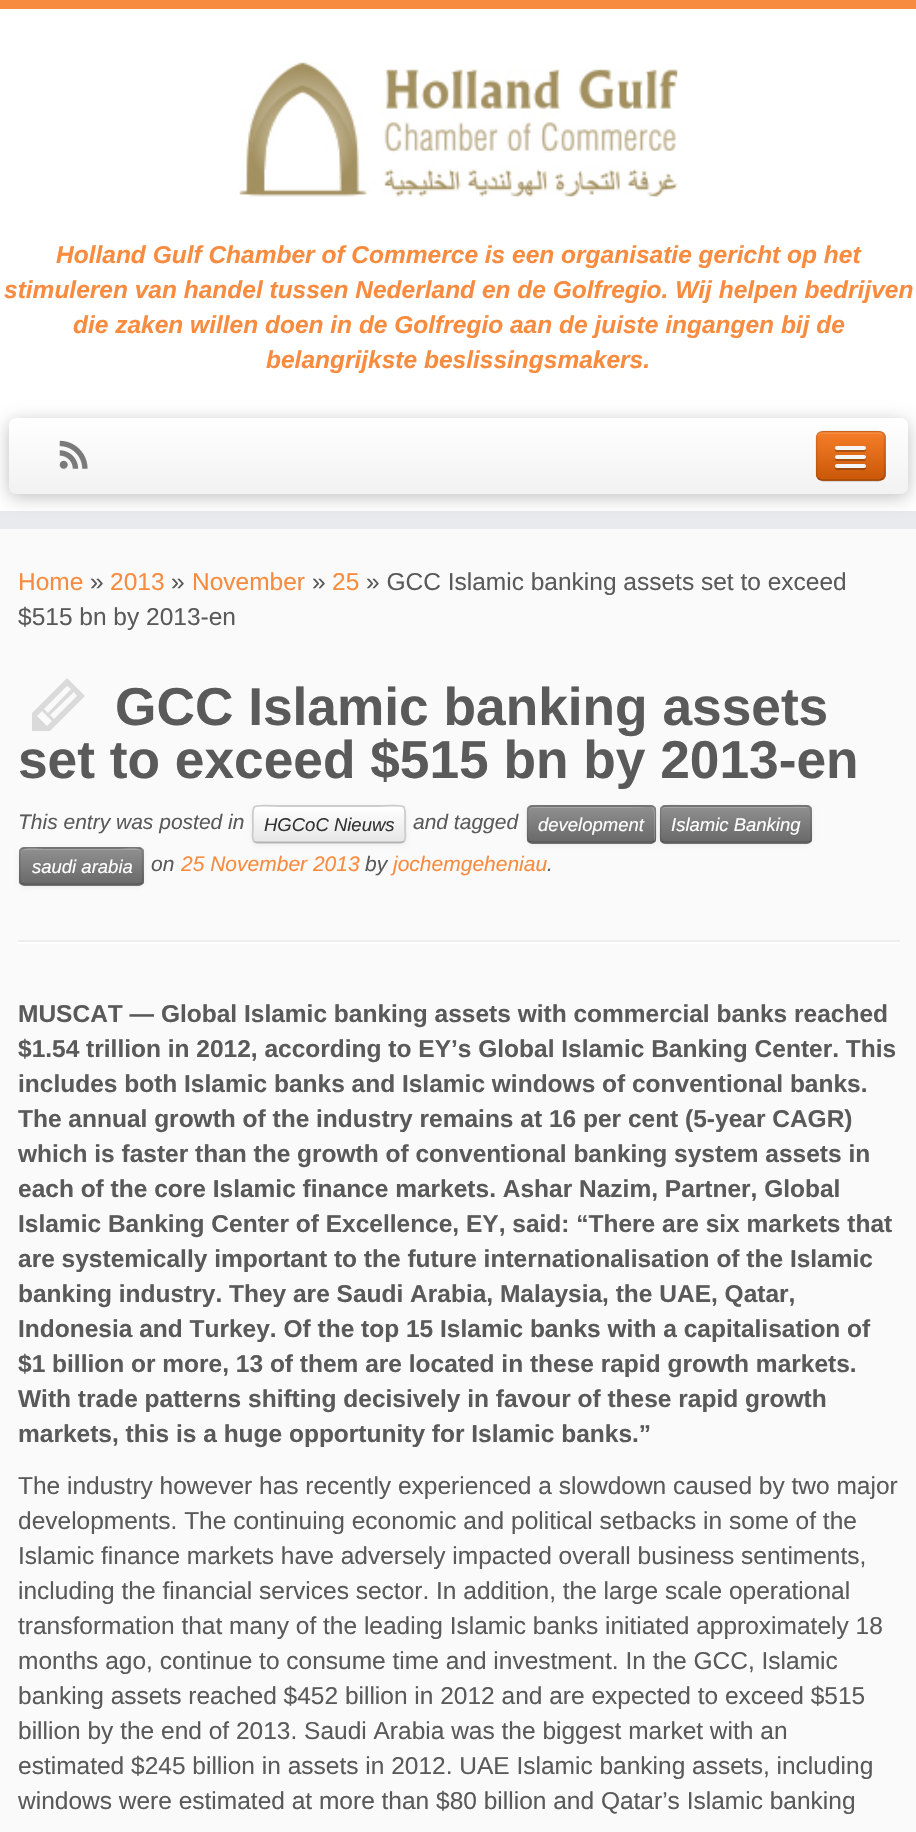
#include "include/core/SkBlurTypes.h"
#include "include/core/SkCanvas.h"
#include "include/core/SkData.h"
#include "include/core/SkFont.h"
#include "include/core/SkFontMgr.h"
#include "include/core/SkImage.h"
#include "include/core/SkMaskFilter.h"
#include "include/core/SkPaint.h"
#include "include/core/SkPathBuilder.h"
#include "include/core/SkTextBlob.h"
#include "include/effects/SkDashPathEffect.h"
#include "include/effects/SkGradientShader.h"
#include "include/utils/SkParsePath.h"

extern sk_sp<SkFontMgr> fontMgr;

static SkFont font(const char* family, int weight, float size, bool italic = false) {
    SkFontStyle style(weight, SkFontStyle::kNormal_Width,
        italic ? SkFontStyle::kItalic_Slant : SkFontStyle::kUpright_Slant);
    SkFont result(fontMgr->matchFamilyStyle(family, style), size);
    result.setSubpixel(true);
    return result;
}

static void drawLabel(SkCanvas* canvas, const char* s, float x, float y, const SkFont& font, SkColor color) {
    SkPaint ink(SkColor4f::FromColor(color));
    ink.setAntiAlias(true);
    canvas->drawString(s, x, y, font, ink);
}

static void fillRect(SkCanvas* canvas, float x, float y, float w, float h, SkColor color) {
    SkPaint ink(SkColor4f::FromColor(color));
    ink.setAntiAlias(true);
    canvas->drawRect(SkRect::MakeXYWH(x, y, w, h), ink);
}

static void fillRRect(SkCanvas* canvas, float x, float y, float w, float h, float radius, SkColor color) {
    SkPaint ink(SkColor4f::FromColor(color));
    ink.setAntiAlias(true);
    canvas->drawRoundRect(SkRect::MakeXYWH(x, y, w, h), radius, radius, ink);
}

static void drawPhoto(SkCanvas* canvas, const char* path, float x, float y, float w, float h) {
    auto image = SkImages::DeferredFromEncodedData(SkData::MakeFromFileName(path));
    canvas->drawImageRect(image, SkRect::MakeXYWH(x, y, w, h), SkSamplingOptions());
}

static SkPath parsePath(const char* data, bool evenOdd = false) {
    SkPath result = *SkParsePath::FromSVGString(data);
    if (evenOdd) result.setFillType(SkPathFillType::kEvenOdd);
    return result;
}

void draw(SkCanvas* canvas) {
    SkPaint paint;
    paint.setAntiAlias(true);
    canvas->clear(0xFFFAFAFA);
    fillRect(canvas, 0, 9, 916, 502, 0xFFFFFFFF);
    fillRect(canvas, 0, 0, 916, 9, 0xFFF78C40);
    fillRect(canvas, 0, 511, 916, 18, 0xFFE9EAEE);
    drawPhoto(canvas, "assets/img1.png", 239, 62, 439, 135);
    SkFont font1 = font("Liberation Sans", 700, 24.5f, true);
    drawLabel(canvas, "Holland Gulf Chamber of Commerce is een organisatie gericht op het", 56, 263, font1, 0xFFF78C40);
    drawLabel(canvas, "stimuleren van handel tussen Nederland en de Golfregio. Wij helpen bedrijven", 4, 298, font1, 0xFFF78C40);
    drawLabel(canvas, "die zaken willen doen in de Golfregio aan de juiste ingangen bij de", 73, 333, font1, 0xFFF78C40);
    drawLabel(canvas, "belangrijkste beslissingsmakers.", 266, 368, font1, 0xFFF78C40);
    paint.setColor(0x40000000);
    paint.setMaskFilter(SkMaskFilter::MakeBlur(kNormal_SkBlurStyle, 9));
    canvas->drawRoundRect(SkRect::MakeXYWH(9, 422, 899, 75), 7, 7, paint);
    paint.setMaskFilter(nullptr);
    {
        const SkColor colors[] = {0xFFFFFFFF, 0xFFF2F2F2};
        const float stops[] = {0, 1};
        const SkPoint ends[] = {{459, 418}, {459, 494}};
        paint.setShader(SkGradientShader::MakeLinear(ends, colors, stops, 2, SkTileMode::kClamp));
        paint.setAlpha(255);
    }
    canvas->drawRoundRect(SkRect::MakeXYWH(9, 418, 899, 76), 7, 7, paint);
    drawPhoto(canvas, "assets/img2.png", 59, 440, 29, 29);
    fillRRect(canvas, 816, 431, 70, 50, 7, 0xFFE46E1B);
    canvas->save();
    canvas->clipPath(parsePath("M823 431H879C883 431 886 434 886 438V474C886 478 883 481 879 481H823C819 481 816 478 816 474V438C816 434 819 431 823 431Z"), true);
    {
        const SkColor colors[] = {0xFFF67D28, 0xFFC95808};
        const float stops[] = {0, 1};
        const SkPoint ends[] = {{851, 432}, {851, 480}};
        paint.setShader(SkGradientShader::MakeLinear(ends, colors, stops, 2, SkTileMode::kClamp));
        paint.setAlpha(255);
    }
    canvas->drawRect(SkRect::MakeXYWH(816, 432, 70, 48), paint);
    canvas->restore();
    paint.setShader(nullptr);
    paint.setColor(0x1AFFFFFF);
    canvas->drawPath(parsePath("M822 434H878C881 434 884 436 884 439C884 430 877 432 870 432H832C824 432 817 430 817 439C817 436 820 434 822 434Z"), paint);
    paint.setStroke(true);
    paint.setStrokeWidth(1.8f);
    paint.setColor(0x40000000);
    canvas->drawPath(parsePath("M883 478.5C881.5 479.5 880 480.5 878.5 480.5H822.5C821 480.5 819.5 479.5 818 478.5"), paint);
    paint.setColor(0x1A000000);
    canvas->drawPath(parsePath("M818 478.5C817 477.5 816.5 476 816.5 474V437.5C816.5 436 817 434.5 818 433C819.5 432 821 431.5 822.5 431.5H878.5C880 431.5 881.5 432 883 433C884 434.5 884.5 436 884.5 437.5V474C884.5 476 884 477.5 883 478.5"), paint);
    paint.setStroke(false);
    paint.setColor(0xFFAB5315);
    canvas->drawPath(parsePath("M835 449C833.5 453 840.5 452 841.5 452H859.5C860.5 452 867.5 453 866 449L864.5 449.5H836.5Z"), paint);
    fillRRect(canvas, 835, 446, 31, 4, 2, 0xFFF5F5F5);
    paint.setColor(0xFFA54E10);
    canvas->drawPath(parsePath("M835.5 458C833 462 841 461 841.5 461H859.5C860 461 868 462 865.5 458L864.5 458.5H836.5Z"), paint);
    fillRRect(canvas, 835, 455, 31, 4, 2, 0xFFF5F5F5);
    paint.setColor(0xFF9F490C);
    canvas->drawPath(parsePath("M835.5 467L835 468.5C835.5 471 840.5 470 841.5 470H859.5C860.5 470 865.5 471 866 468.5L865.5 467C864.5 467.5 836.5 467.5 835.5 467Z"), paint);
    fillRRect(canvas, 835, 464, 31, 4, 2, 0xFFF5F5F5);
    SkFont font2 = font("Liberation Sans", 400, 24.5f);
    drawLabel(canvas, "Home", 18, 590, font2, 0xFFF78C40);
    drawLabel(canvas, "»", 90, 590, font2, 0xFF5A5A5A);
    drawLabel(canvas, "2013", 110, 590, font2, 0xFFF78C40);
    drawLabel(canvas, "»", 171, 590, font2, 0xFF5A5A5A);
    drawLabel(canvas, "November", 192, 590, font2, 0xFFF78C40);
    drawLabel(canvas, "»", 312, 590, font2, 0xFF5A5A5A);
    drawLabel(canvas, "25", 332, 590, font2, 0xFFF78C40);
    drawLabel(canvas, "» GCC Islamic banking assets set to exceed", 366, 590, font2, 0xFF5A5A5A);
    drawLabel(canvas, "$515 bn by 2013-en", 18, 625, font2, 0xFF5A5A5A);
    paint.setColor(0xFFDADADA);
    canvas->drawPath(parsePath("M32 731V713L67 678L85 696L50 731ZM37 716L47 726L52 721L42 711ZM44 709L48 713L71 689L67 686ZM50 715L54 719L77 696L74 692Z"), paint);
    SkFont font3 = font("Liberation Sans", 700, 53.25f);
    drawLabel(canvas, "GCC Islamic banking assets", 115, 725, font3, 0xFF5A5A5A);
    drawLabel(canvas, "set to exceed $515 bn by 2013-en", 18, 778, font3, 0xFF5A5A5A);
    SkFont font4 = font("Liberation Sans", 400, 21, true);
    drawLabel(canvas, "This entry was posted in", 18, 829, font4, 0xFF5A5A5A);
    paint.setColor(0x0D000000);
    paint.setMaskFilter(SkMaskFilter::MakeBlur(kNormal_SkBlurStyle, 2));
    canvas->drawRoundRect(SkRect::MakeXYWH(252, 807, 154, 38), 5, 5, paint);
    paint.setMaskFilter(nullptr);
    fillRRect(canvas, 252, 805, 154, 39, 5, 0xFFF5F5F5);
    canvas->save();
    canvas->clipPath(parsePath("M257 805H401C404 805 406 807 406 810V839C406 842 404 844 401 844H257C254 844 252 842 252 839V810C252 807 254 805 257 805Z"), true);
    {
        const SkColor colors[] = {0xFFFFFFFF, 0xFFE6E6E6};
        const float stops[] = {0, 1};
        const SkPoint ends[] = {{329, 807}, {329, 842}};
        paint.setShader(SkGradientShader::MakeLinear(ends, colors, stops, 2, SkTileMode::kClamp));
        paint.setAlpha(255);
    }
    canvas->drawRect(SkRect::MakeXYWH(252, 807, 154, 35), paint);
    canvas->restore();
    paint.setStroke(true);
    paint.setShader(nullptr);
    paint.setColor(0xFFB3B3B3);
    canvas->drawPath(parsePath("M404 841.5C403 842 402 842.5 401 842.5H257C256 842.5 255 842 254 841.5"), paint);
    paint.setColor(0xFFCCCCCC);
    canvas->drawPath(parsePath("M254 841.5C251.5 838.5 253 832 253 829C253 800 248.5 806 281 806H377C409.5 806 405 800 405 829C405 832 406.5 838.5 404 841.5"), paint);
    SkFont font5 = font("Liberation Sans", 400, 18.5f, true);
    drawLabel(canvas, "HGCoC Nieuws", 264, 831, font5, 0xFF333333);
    drawLabel(canvas, "and tagged", 413, 829, font4, 0xFF5A5A5A);
    paint.setStroke(false);
    paint.setColor(0x0D000000);
    paint.setMaskFilter(SkMaskFilter::MakeBlur(kNormal_SkBlurStyle, 2));
    canvas->drawRoundRect(SkRect::MakeXYWH(527, 807, 129, 38), 5, 5, paint);
    paint.setMaskFilter(nullptr);
    fillRRect(canvas, 527, 805, 129, 39, 5, 0xFF808080);
    canvas->save();
    canvas->clipPath(parsePath("M532 805H651C654 805 656 807 656 810V839C656 842 654 844 651 844H532C529 844 527 842 527 839V810C527 807 529 805 532 805Z"), true);
    {
        const SkColor colors[] = {0xFF8F8F8F, 0xFF696969};
        const float stops[] = {0, 1};
        const SkPoint ends[] = {{592, 807}, {592, 842}};
        paint.setShader(SkGradientShader::MakeLinear(ends, colors, stops, 2, SkTileMode::kClamp));
        paint.setAlpha(255);
    }
    canvas->drawRect(SkRect::MakeXYWH(527, 807, 129, 35), paint);
    canvas->restore();
    paint.setShader(nullptr);
    paint.setColor(0x33FFFFFF);
    canvas->drawPath(parsePath("M532 808H631C655 808 654 803 654 821V841C655 840 655 839 655 838V811C655 809 653 807 651 807H533C532 807 530 808 530 809Z"), paint);
    paint.setStroke(true);
    paint.setColor(0x40000000);
    canvas->drawPath(parsePath("M654 841.5L651.5 842.5H552H532L529 841.5"), paint);
    paint.setColor(0x1A000000);
    canvas->drawPath(parsePath("M529 841.5C526 838.5 527.5 832 527.5 829C527.5 801.5 523 806 552 806H631C660 806 655.5 801.5 655.5 829C655.5 832 657 838.5 654 841.5"), paint);
    drawLabel(canvas, "development", 538, 831, font5, 0xFFFFFFFF);
    paint.setStroke(false);
    paint.setColor(0x0D000000);
    paint.setMaskFilter(SkMaskFilter::MakeBlur(kNormal_SkBlurStyle, 2));
    canvas->drawRoundRect(SkRect::MakeXYWH(660, 807, 152, 38), 5, 5, paint);
    paint.setMaskFilter(nullptr);
    fillRRect(canvas, 660, 805, 152, 39, 5, 0xFF808080);
    canvas->save();
    canvas->clipPath(parsePath("M665 805H807C810 805 812 807 812 810V839C812 842 810 844 807 844H665C662 844 660 842 660 839V810C660 807 662 805 665 805Z"), true);
    {
        const SkColor colors[] = {0xFF8F8F8F, 0xFF696969};
        const float stops[] = {0, 1};
        const SkPoint ends[] = {{736, 807}, {736, 842}};
        paint.setShader(SkGradientShader::MakeLinear(ends, colors, stops, 2, SkTileMode::kClamp));
        paint.setAlpha(255);
    }
    canvas->drawRect(SkRect::MakeXYWH(660, 807, 152, 35), paint);
    canvas->restore();
    paint.setShader(nullptr);
    paint.setColor(0xFFA5A5A5);
    canvas->drawPath(parsePath("M665 808H807C809 808 810 810 810 812C810 810 809 808 807 807H666C663 807 662 809 662 812C662 810 663 808 665 808Z"), paint);
    paint.setStroke(true);
    paint.setColor(0x40000000);
    canvas->drawPath(parsePath("M810 841.5C809 842 808 842.5 807 842.5H665C664 842.5 662.5 842 662 841.5"), paint);
    paint.setColor(0x1A000000);
    canvas->drawPath(parsePath("M662 841.5C659 838.5 660.5 832 660.5 829C660.5 800 656.5 806 688.5 806H783C815.5 806 811 800 811 829C811 832 812.5 838.5 810 841.5"), paint);
    drawLabel(canvas, "Islamic Banking", 671, 831, font5, 0xFFFFFFFF);
    paint.setStroke(false);
    paint.setColor(0x0D000000);
    paint.setMaskFilter(SkMaskFilter::MakeBlur(kNormal_SkBlurStyle, 2));
    canvas->drawRoundRect(SkRect::MakeXYWH(19, 849, 125, 38), 5, 5, paint);
    paint.setMaskFilter(nullptr);
    fillRRect(canvas, 19, 847, 125, 39, 5, 0xFF808080);
    canvas->save();
    canvas->clipPath(parsePath("M24 847H139C142 847 144 849 144 852V881C144 884 142 886 139 886H24C21 886 19 884 19 881V852C19 849 21 847 24 847Z"), true);
    {
        const SkColor colors[] = {0xFF8F8F8F, 0xFF696969};
        const float stops[] = {0, 1};
        const SkPoint ends[] = {{81, 849}, {81, 884}};
        paint.setShader(SkGradientShader::MakeLinear(ends, colors, stops, 2, SkTileMode::kClamp));
        paint.setAlpha(255);
    }
    canvas->drawRect(SkRect::MakeXYWH(19, 849, 125, 35), paint);
    canvas->restore();
    paint.setShader(nullptr);
    paint.setColor(0x33FFFFFF);
    canvas->drawPath(parsePath("M24 850H138C140 850 142 852 142 854C142 844 122 849 119 849H44C41 849 21 844 21 854C21 852 23 850 24 850Z"), paint);
    paint.setStroke(true);
    paint.setColor(0x40000000);
    canvas->drawPath(parsePath("M141.5 883.5L138.5 884.5H43.5H24.5L21.5 883.5"), paint);
    paint.setColor(0x1A000000);
    canvas->drawPath(parsePath("M21.5 883.5C18.5 880.5 20 874 20 871C20 844 15.5 848 43.5 848H119.5C147.5 848 142.5 844 142.5 871C142.5 874 144 880.5 141.5 883.5"), paint);
    drawLabel(canvas, "saudi arabia", 32, 873, font5, 0xFFFFFFFF);
    drawLabel(canvas, "on", 151, 871, font4, 0xFF5A5A5A);
    drawLabel(canvas, "25 November 2013", 181, 871, font4, 0xFFF78C40);
    drawLabel(canvas, "by", 365, 871, font4, 0xFF5A5A5A);
    drawLabel(canvas, "jochemgeheniau", 393, 871, font4, 0xFFF78C40);
    drawLabel(canvas, ".", 547, 871, font4, 0xFF5A5A5A);
    fillRect(canvas, 18, 940, 882, 2, 0xFFEEEEEE);
    fillRect(canvas, 18, 942, 882, 2, 0xFFFFFFFF);
    SkFont font6 = font("Liberation Sans", 700, 24.5f);
    drawLabel(canvas, "MUSCAT — Global Islamic banking assets with commercial banks reached", 18, 1022, font6, 0xFF5A5A5A);
    drawLabel(canvas, "$1.54 trillion in 2012, according to EY’s Global Islamic Banking Center. This", 18, 1057, font6, 0xFF5A5A5A);
    drawLabel(canvas, "includes both Islamic banks and Islamic windows of conventional banks.", 18, 1092, font6, 0xFF5A5A5A);
    drawLabel(canvas, "The annual growth of the industry remains at 16 per cent (5-year CAGR)", 18, 1127, font6, 0xFF5A5A5A);
    drawLabel(canvas, "which is faster than the growth of conventional banking system assets in", 18, 1162, font6, 0xFF5A5A5A);
    drawLabel(canvas, "each of the core Islamic finance markets. Ashar Nazim, Partner, Global", 18, 1197, font6, 0xFF5A5A5A);
    drawLabel(canvas, "Islamic Banking Center of Excellence, EY, said: “There are six markets that", 18, 1232, font6, 0xFF5A5A5A);
    drawLabel(canvas, "are systemically important to the future internationalisation of the Islamic", 18, 1267, font6, 0xFF5A5A5A);
    drawLabel(canvas, "banking industry. They are Saudi Arabia, Malaysia, the UAE, Qatar,", 18, 1302, font6, 0xFF5A5A5A);
    drawLabel(canvas, "Indonesia and Turkey. Of the top 15 Islamic banks with a capitalisation of", 18, 1337, font6, 0xFF5A5A5A);
    drawLabel(canvas, "$1 billion or more, 13 of them are located in these rapid growth markets.", 18, 1372, font6, 0xFF5A5A5A);
    drawLabel(canvas, "With trade patterns shifting decisively in favour of these rapid growth", 18, 1407, font6, 0xFF5A5A5A);
    drawLabel(canvas, "markets, this is a huge opportunity for Islamic banks.”", 18, 1442, font6, 0xFF5A5A5A);
    drawLabel(canvas, "The industry however has recently experienced a slowdown caused by two major", 18, 1494, font2, 0xFF5A5A5A);
    drawLabel(canvas, "developments. The continuing economic and political setbacks in some of the", 18, 1529, font2, 0xFF5A5A5A);
    drawLabel(canvas, "Islamic finance markets have adversely impacted overall business sentiments,", 18, 1564, font2, 0xFF5A5A5A);
    drawLabel(canvas, "including the financial services sector. In addition, the large scale operational", 18, 1599, font2, 0xFF5A5A5A);
    drawLabel(canvas, "transformation that many of the leading Islamic banks initiated approximately 18", 18, 1634, font2, 0xFF5A5A5A);
    drawLabel(canvas, "months ago, continue to consume time and investment. In the GCC, Islamic", 18, 1669, font2, 0xFF5A5A5A);
    drawLabel(canvas, "banking assets reached $452 billion in 2012 and are expected to exceed $515", 18, 1704, font2, 0xFF5A5A5A);
    drawLabel(canvas, "billion by the end of 2013. Saudi Arabia was the biggest market with an", 18, 1739, font2, 0xFF5A5A5A);
    drawLabel(canvas, "estimated $245 billion in assets in 2012. UAE Islamic banking assets, including", 18, 1774, font2, 0xFF5A5A5A);
    drawLabel(canvas, "windows were estimated at more than $80 billion and Qatar’s Islamic banking", 18, 1809, font2, 0xFF5A5A5A);
}
